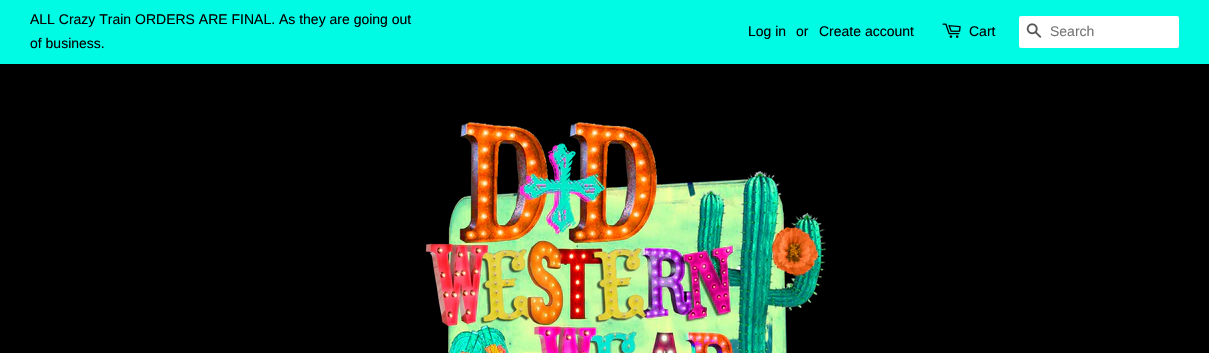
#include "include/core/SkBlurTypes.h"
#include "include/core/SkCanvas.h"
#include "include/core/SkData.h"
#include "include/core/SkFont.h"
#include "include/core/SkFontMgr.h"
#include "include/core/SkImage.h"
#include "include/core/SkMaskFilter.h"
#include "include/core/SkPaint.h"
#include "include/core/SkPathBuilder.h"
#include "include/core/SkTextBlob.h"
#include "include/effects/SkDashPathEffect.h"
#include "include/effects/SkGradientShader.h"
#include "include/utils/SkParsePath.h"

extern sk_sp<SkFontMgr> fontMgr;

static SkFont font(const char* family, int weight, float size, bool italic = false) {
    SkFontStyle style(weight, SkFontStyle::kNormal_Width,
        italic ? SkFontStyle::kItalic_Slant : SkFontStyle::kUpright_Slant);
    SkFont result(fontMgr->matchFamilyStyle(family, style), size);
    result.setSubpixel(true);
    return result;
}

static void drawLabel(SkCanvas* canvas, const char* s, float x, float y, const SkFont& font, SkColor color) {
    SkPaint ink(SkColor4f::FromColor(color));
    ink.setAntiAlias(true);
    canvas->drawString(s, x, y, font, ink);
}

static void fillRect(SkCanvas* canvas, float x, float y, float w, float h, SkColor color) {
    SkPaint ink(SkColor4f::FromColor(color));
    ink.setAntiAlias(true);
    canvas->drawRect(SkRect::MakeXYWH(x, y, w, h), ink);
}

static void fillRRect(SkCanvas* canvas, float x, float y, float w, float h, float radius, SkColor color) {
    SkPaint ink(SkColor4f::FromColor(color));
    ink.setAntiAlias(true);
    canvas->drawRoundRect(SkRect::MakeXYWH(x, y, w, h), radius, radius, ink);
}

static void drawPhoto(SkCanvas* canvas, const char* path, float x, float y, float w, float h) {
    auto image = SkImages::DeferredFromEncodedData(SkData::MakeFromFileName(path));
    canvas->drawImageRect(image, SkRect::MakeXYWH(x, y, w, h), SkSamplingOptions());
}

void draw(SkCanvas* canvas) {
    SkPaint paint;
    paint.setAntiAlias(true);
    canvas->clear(0xFF000000);
    fillRect(canvas, 0, 0, 1209, 64, 0xFF00FBE5);
    SkFont font1 = font("Liberation Sans", 400, 14);
    drawLabel(canvas, "ALL Crazy Train ORDERS ARE FINAL. As they are going out", 30, 24, font1, 0xFF000000);
    drawLabel(canvas, "of business.", 30, 48, font1, 0xFF000000);
    drawLabel(canvas, "Log in", 748, 36, font1, 0xFF000000);
    drawLabel(canvas, "or", 796, 36, font1, 0xFF000000);
    drawLabel(canvas, "Create account", 819, 36, font1, 0xFF000000);
    drawPhoto(canvas, "assets/img1.png", 942, 23, 19, 15);
    drawLabel(canvas, "Cart", 969, 36, font1, 0xFF000000);
    fillRRect(canvas, 1019, 16, 160, 32, 2, 0xFFFFFFFF);
    drawPhoto(canvas, "assets/img2.png", 1026, 23, 16, 15);
    drawLabel(canvas, "Search", 1050, 36, font1, 0xFF757575);
    drawPhoto(canvas, "assets/img3.png", 425, 122, 402, 231);
}
